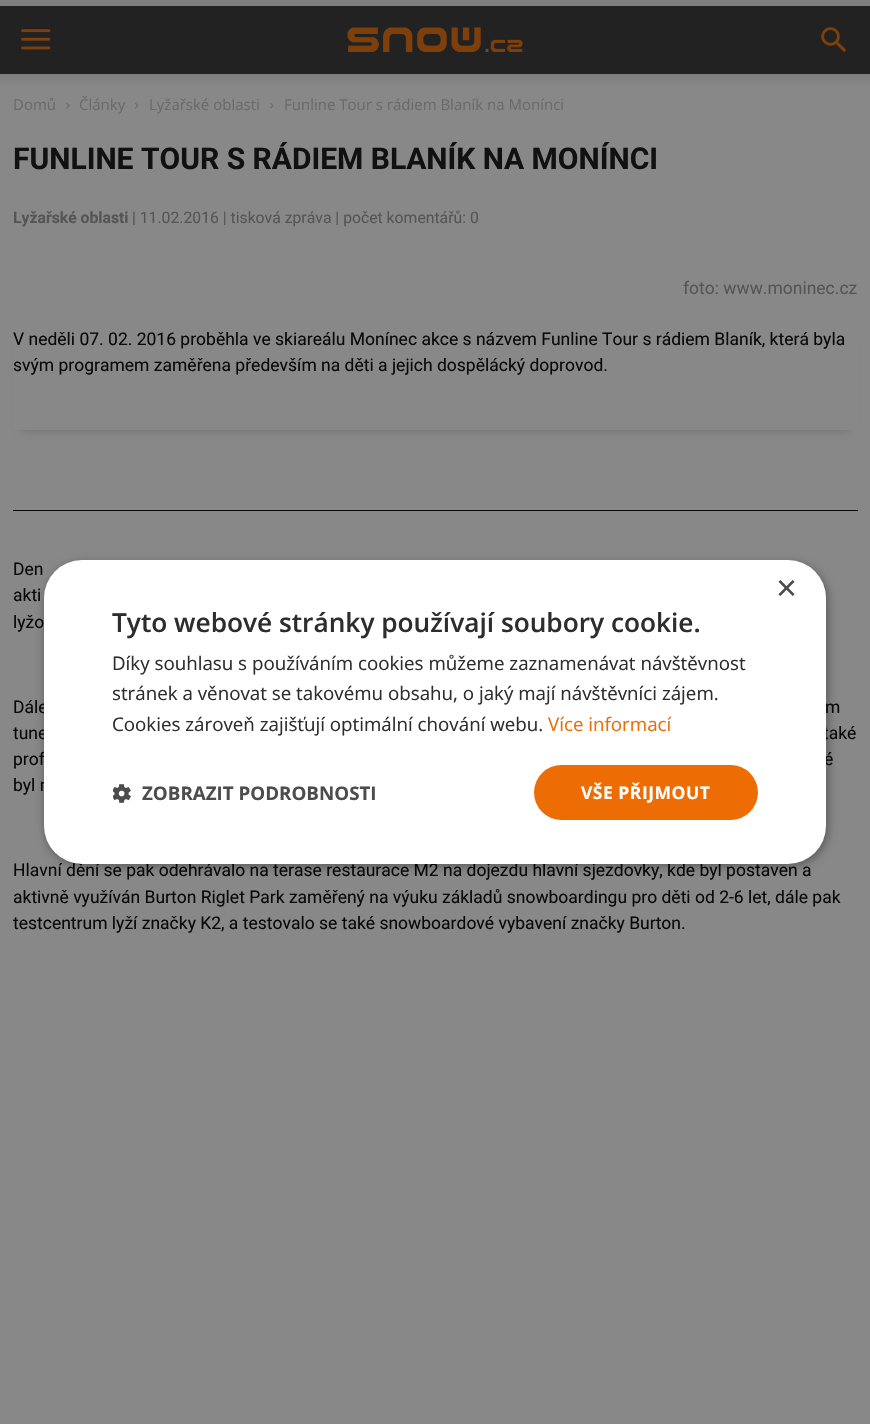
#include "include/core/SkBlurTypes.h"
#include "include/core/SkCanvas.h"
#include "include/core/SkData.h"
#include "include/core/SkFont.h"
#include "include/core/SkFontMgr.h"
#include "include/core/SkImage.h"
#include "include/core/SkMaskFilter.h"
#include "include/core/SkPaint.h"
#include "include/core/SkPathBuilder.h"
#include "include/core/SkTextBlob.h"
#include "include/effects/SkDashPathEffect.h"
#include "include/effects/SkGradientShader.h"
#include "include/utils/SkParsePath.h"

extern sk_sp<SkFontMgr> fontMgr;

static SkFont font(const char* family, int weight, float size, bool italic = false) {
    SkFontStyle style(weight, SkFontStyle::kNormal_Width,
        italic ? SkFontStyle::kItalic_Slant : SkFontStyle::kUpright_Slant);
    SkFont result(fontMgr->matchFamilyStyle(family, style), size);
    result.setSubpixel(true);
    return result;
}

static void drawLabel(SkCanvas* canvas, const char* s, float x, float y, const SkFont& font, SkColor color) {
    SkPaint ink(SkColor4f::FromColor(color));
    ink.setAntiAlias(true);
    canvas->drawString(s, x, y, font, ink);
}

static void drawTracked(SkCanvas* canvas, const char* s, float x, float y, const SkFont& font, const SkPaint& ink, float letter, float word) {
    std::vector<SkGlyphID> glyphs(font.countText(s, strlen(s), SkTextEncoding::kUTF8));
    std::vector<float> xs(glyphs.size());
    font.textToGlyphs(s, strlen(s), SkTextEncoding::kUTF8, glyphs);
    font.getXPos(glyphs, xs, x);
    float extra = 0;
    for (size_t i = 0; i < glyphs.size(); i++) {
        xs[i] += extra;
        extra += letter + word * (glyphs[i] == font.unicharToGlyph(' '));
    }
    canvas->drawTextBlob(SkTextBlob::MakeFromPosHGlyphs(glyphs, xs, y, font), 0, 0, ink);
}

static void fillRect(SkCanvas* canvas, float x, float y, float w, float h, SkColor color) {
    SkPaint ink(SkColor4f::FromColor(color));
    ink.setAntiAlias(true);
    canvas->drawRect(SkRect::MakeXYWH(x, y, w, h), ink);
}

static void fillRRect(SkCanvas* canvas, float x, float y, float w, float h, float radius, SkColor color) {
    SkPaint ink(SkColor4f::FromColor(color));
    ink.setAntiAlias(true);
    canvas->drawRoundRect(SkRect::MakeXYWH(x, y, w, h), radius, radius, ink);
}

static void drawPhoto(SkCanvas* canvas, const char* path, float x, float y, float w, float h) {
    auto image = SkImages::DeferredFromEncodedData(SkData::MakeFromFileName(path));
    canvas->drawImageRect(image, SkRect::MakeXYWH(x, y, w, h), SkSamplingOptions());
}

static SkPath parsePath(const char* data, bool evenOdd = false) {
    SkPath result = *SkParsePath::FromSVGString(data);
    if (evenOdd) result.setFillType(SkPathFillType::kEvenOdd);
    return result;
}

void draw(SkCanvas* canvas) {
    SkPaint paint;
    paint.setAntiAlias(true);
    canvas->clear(0xFF7F7F7F);
    fillRect(canvas, 0, 6, 870, 68, 0xFF222222);
    drawPhoto(canvas, "assets/img1.png", 21, 29, 30, 21);
    drawPhoto(canvas, "assets/img2.png", 347, 27, 176, 25);
    drawPhoto(canvas, "assets/img3.png", 821, 27, 25, 25);
    fillRect(canvas, 0, 74, 870, 1350, 0xFF888888);
    drawPhoto(canvas, "assets/img4.png", 0, 74, 870, 10);
    SkFont font1 = font("Open Sans", 400, 15);
    drawLabel(canvas, "Domů", 13, 110, font1, 0xFF6A6A6A);
    drawPhoto(canvas, "assets/img5.png", 66, 102, 4, 7);
    drawLabel(canvas, "Články", 79, 110, font1, 0xFF6A6A6A);
    drawPhoto(canvas, "assets/img6.png", 135, 102, 4, 7);
    drawLabel(canvas, "Lyžařské oblasti", 149, 110, font1, 0xFF6A6A6A);
    drawPhoto(canvas, "assets/img6.png", 270, 102, 4, 7);
    drawLabel(canvas, "Funline Tour s rádiem Blaník na Monínci", 284, 110, font1, 0xFF6A6A6A);
    SkFont font2 = font("Roboto", 700, 30);
    drawLabel(canvas, "FUNLINE TOUR S RÁDIEM BLANÍK NA MONÍNCI", 13, 169, font2, 0xFF111111);
    SkFont font3 = font("Roboto", 700, 15.75f);
    drawLabel(canvas, "Lyžařské oblasti", 13, 223, font3, 0xFF555555);
    SkFont font4 = font("Roboto", 400, 15.75f);
    drawLabel(canvas, "| 11.02.2016 | tisková zpráva | počet komentářů: 0", 132, 223, font4, 0xFF555555);
    SkFont font5 = font("Roboto", 400, 17.5f);
    drawLabel(canvas, "foto: www.moninec.cz", 683, 294, font5, 0xFF555555);
    canvas->save();
    canvas->clipPath(parsePath("M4 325H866V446H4ZM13 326H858V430H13Z", true), true);
    paint.setColor(0xFF6F6F6F);
    paint.setMaskFilter(SkMaskFilter::MakeBlur(kNormal_SkBlurStyle, 5));
    canvas->drawRect(SkRect::MakeXYWH(20, 341, 830, 89), paint);
    paint.setMaskFilter(nullptr);
    canvas->restore();
    drawLabel(canvas, "V neděli 07. 02. 2016 proběhla ve skiareálu Monínec akce s názvem Funline Tour s rádiem Blaník, která byla", 13, 345, font5, 0xFF090909);
    drawLabel(canvas, "svým programem zaměřena především na děti a jejich dospělácký doprovod.", 13, 371, font5, 0xFF090909);
    fillRect(canvas, 13, 510, 845, 1, 0xFF090909);
    drawLabel(canvas, "Den", 13, 575, font5, 0xFF090909);
    drawLabel(canvas, "akti", 13, 601, font5, 0xFF090909);
    drawLabel(canvas, "lyžo", 13, 628, font5, 0xFF090909);
    drawLabel(canvas, "Dále", 13, 713, font5, 0xFF090909);
    drawLabel(canvas, "m", 825, 713, font5, 0xFF090909);
    drawLabel(canvas, "tune", 13, 739, font5, 0xFF090909);
    drawLabel(canvas, "také", 823, 739, font5, 0xFF090909);
    drawLabel(canvas, "prof", 13, 765, font5, 0xFF090909);
    drawLabel(canvas, "é", 824, 765, font5, 0xFF090909);
    drawLabel(canvas, "byl n", 13, 791, font5, 0xFF090909);
    drawLabel(canvas, "Hlavní dění se pak odehrávalo na terase restaurace M2 na dojezdu hlavní sjezdovky, kde byl postaven a", 13, 876, font5, 0xFF090909);
    drawLabel(canvas, "aktivně využíván Burton Riglet Park zaměřený na výuku základů snowboardingu pro děti od 2-6 let, dále pak", 13, 903, font5, 0xFF090909);
    drawLabel(canvas, "testcentrum lyží značky K2, a testovalo se také snowboardové vybavení značky Burton.", 13, 929, font5, 0xFF090909);
    paint.setColor(0x59000000);
    paint.setMaskFilter(SkMaskFilter::MakeBlur(kNormal_SkBlurStyle, 5));
    canvas->drawRoundRect(SkRect::MakeXYWH(45, 563, 783, 303), 38, 38, paint);
    paint.setMaskFilter(nullptr);
    fillRRect(canvas, 44, 560, 782, 304, 38, 0xFFFFFFFF);
    SkFont font6 = font("Liberation Sans", 400, 36);
    drawLabel(canvas, "×", 776, 600, font6, 0xFF4D4D4D);
    SkFont font7 = font("Open Sans", 600, 26.25f);
    drawLabel(canvas, "Tyto webové stránky používají soubory cookie.", 112, 632, font7, 0xFF2D2D2D);
    SkFont font8 = font("Open Sans", 400, 18.75f);
    drawLabel(canvas, "Díky souhlasu s používáním cookies můžeme zaznamenávat návštěvnost", 112, 670, font8, 0xFF2D2D2D);
    drawLabel(canvas, "stránek a věnovat se takovému obsahu, o jaký mají návštěvníci zájem.", 112, 700, font8, 0xFF2D2D2D);
    drawLabel(canvas, "Cookies zároveň zajišťují optimální chování webu.", 112, 731, font8, 0xFF2D2D2D);
    drawLabel(canvas, "Více informací", 548, 731, font8, 0xFFED6D04);
    drawPhoto(canvas, "assets/img7.png", 113, 784, 18, 19);
    SkFont font9 = font("Open Sans", 700, 18.75f);
    drawLabel(canvas, "ZOBRAZIT PODROBNOSTI", 142, 800, font9, 0xFF4D4D4D);
    fillRRect(canvas, 534, 765, 224, 55, 27.5f, 0xFFED6D04);
    SkFont font10 = font("Open Sans", 700, 17.5f);
    paint.setColor(0xFFFFFFFF);
    drawTracked(canvas, "VŠE PŘIJMOUT", 581, 799, font10, paint, 0.5f, 0);
}
